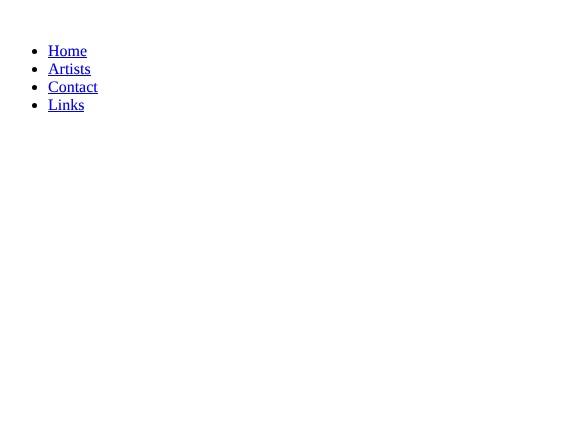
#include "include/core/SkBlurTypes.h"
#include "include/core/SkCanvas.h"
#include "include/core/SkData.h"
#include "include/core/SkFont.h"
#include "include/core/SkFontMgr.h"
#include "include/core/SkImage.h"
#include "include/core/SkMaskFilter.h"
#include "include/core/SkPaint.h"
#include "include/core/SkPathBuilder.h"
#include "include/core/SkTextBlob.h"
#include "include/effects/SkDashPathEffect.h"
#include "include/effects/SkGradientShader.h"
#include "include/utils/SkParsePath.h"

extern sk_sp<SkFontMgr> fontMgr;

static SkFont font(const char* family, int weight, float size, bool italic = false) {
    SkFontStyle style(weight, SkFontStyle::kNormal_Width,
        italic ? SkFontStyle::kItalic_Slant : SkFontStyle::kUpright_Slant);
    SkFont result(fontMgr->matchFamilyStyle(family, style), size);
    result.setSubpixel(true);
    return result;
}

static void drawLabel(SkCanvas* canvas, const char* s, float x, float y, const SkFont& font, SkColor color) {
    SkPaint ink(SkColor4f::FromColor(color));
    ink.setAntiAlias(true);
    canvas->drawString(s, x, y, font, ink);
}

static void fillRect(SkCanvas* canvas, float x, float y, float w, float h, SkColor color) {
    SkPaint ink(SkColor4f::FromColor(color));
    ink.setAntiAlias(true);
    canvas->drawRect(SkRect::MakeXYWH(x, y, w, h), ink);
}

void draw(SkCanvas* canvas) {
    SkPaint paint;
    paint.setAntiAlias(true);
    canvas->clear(0xFFFFFFFF);
    paint.setColor(0xFF000000);
    canvas->drawCircle(34.5f, 51.5f, 2.5f, paint);
    SkFont font1 = font("Liberation Serif", 400, 16);
    drawLabel(canvas, "Home", 48, 56, font1, 0xFF0000EE);
    fillRect(canvas, 48, 57, 39, 1, 0xFF0000EE);
    canvas->drawCircle(34.5f, 69.5f, 2.5f, paint);
    drawLabel(canvas, "Artists", 48, 74, font1, 0xFF0000EE);
    fillRect(canvas, 48, 75, 43, 1, 0xFF0000EE);
    canvas->drawCircle(34.5f, 87.5f, 2.5f, paint);
    drawLabel(canvas, "Contact", 48, 92, font1, 0xFF0000EE);
    fillRect(canvas, 48, 93, 50, 1, 0xFF0000EE);
    canvas->drawCircle(34.5f, 105.5f, 2.5f, paint);
    drawLabel(canvas, "Links", 48, 110, font1, 0xFF0000EE);
    fillRect(canvas, 48, 111, 36, 1, 0xFF0000EE);
}
